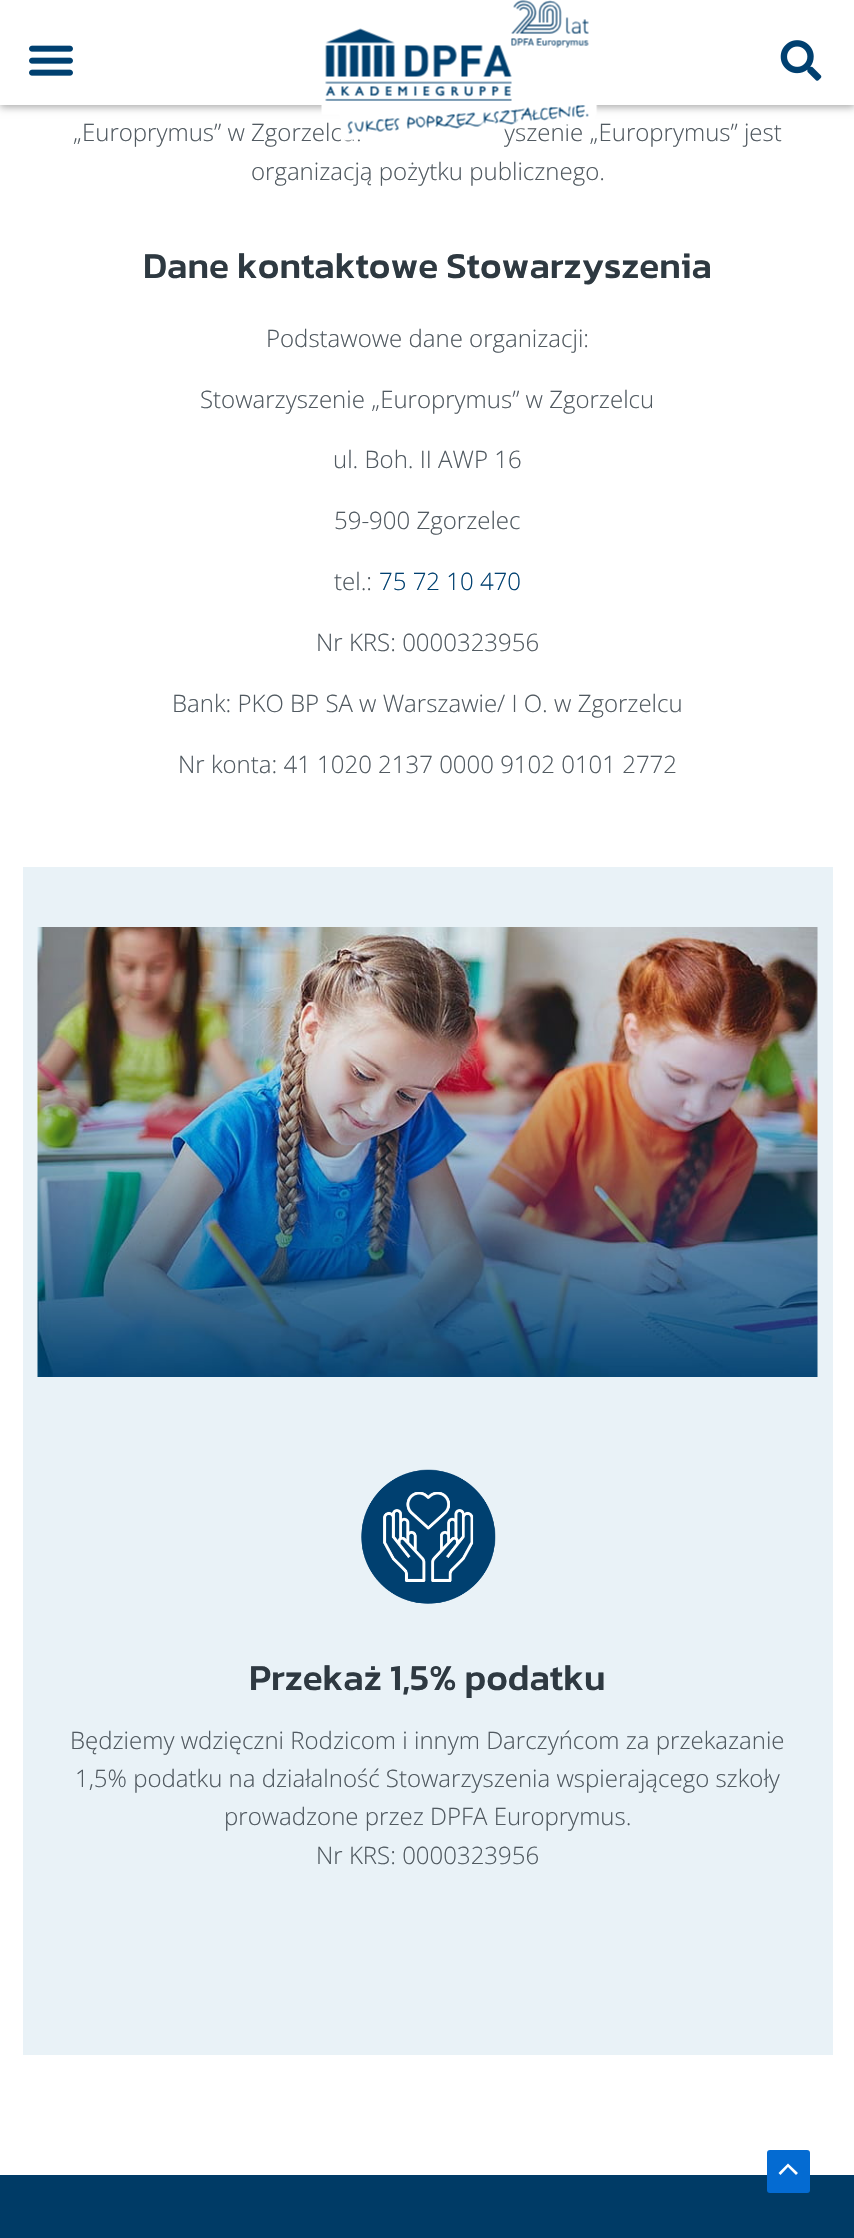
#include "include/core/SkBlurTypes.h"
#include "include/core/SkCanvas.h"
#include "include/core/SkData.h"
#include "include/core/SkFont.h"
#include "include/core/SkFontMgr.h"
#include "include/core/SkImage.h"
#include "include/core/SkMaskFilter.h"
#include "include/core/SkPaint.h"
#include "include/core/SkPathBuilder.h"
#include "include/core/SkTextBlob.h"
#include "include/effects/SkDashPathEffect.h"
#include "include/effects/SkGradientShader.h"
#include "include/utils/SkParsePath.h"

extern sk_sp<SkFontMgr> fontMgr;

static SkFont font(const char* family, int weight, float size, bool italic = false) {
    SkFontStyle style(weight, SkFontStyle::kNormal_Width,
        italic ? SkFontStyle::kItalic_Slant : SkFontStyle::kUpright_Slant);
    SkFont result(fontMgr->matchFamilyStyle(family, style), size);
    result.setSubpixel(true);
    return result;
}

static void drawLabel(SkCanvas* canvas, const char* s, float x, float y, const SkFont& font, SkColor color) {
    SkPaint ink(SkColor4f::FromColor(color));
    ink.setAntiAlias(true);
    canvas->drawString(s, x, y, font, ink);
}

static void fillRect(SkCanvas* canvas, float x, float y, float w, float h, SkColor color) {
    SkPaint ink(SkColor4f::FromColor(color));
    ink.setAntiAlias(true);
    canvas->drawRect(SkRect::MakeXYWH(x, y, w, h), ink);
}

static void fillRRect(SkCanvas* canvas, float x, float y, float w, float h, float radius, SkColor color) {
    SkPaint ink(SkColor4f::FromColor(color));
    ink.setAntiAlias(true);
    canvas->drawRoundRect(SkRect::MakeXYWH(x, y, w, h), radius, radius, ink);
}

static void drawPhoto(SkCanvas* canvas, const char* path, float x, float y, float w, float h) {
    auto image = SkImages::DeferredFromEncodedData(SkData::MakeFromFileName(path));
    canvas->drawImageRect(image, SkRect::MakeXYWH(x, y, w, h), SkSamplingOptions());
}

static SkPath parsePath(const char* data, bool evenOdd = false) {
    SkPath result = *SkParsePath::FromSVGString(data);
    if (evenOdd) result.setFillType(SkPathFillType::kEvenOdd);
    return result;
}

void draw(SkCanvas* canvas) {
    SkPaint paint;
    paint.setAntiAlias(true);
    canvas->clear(0xFFFFFFFF);
    paint.setColor(0x59000000);
    paint.setMaskFilter(SkMaskFilter::MakeBlur(kNormal_SkBlurStyle, 4));
    canvas->drawRect(SkRect::MakeXYWH(0, 2, 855, 105), paint);
    paint.setMaskFilter(nullptr);
    fillRect(canvas, 0, 0, 854, 105, 0xFFFFFFFF);
    drawPhoto(canvas, "assets/img1.png", 29, 45, 44, 31);
    SkFont font1 = font("Open Sans", 300, 24);
    drawLabel(canvas, "„Europrymus” w Zgorzelcu.", 73, 141, font1, 0xFF515A61);
    drawLabel(canvas, "yszenie „Europrymus” jest", 504, 141, font1, 0xFF515A61);
    drawPhoto(canvas, "assets/img2.png", 321, 0, 277, 141);
    drawPhoto(canvas, "assets/img3.png", 780, 40, 42, 41);
    drawLabel(canvas, "organizacją pożytku publicznego.", 251, 180, font1, 0xFF515A61);
    SkFont font2 = font("Kanit", 500, 36.75f);
    drawLabel(canvas, "Dane kontaktowe Stowarzyszenia", 143, 278, font2, 0xFF2E3941);
    drawLabel(canvas, "Podstawowe dane organizacji:", 266, 347, font1, 0xFF515A61);
    drawLabel(canvas, "Stowarzyszenie „Europrymus” w Zgorzelcu", 200, 408, font1, 0xFF515A61);
    drawLabel(canvas, "ul. Boh. II AWP 16", 333, 468, font1, 0xFF515A61);
    drawLabel(canvas, "59-900 Zgorzelec", 334, 529, font1, 0xFF515A61);
    drawLabel(canvas, "tel.:", 334, 590, font1, 0xFF515A61);
    drawLabel(canvas, "75 72 10 470", 379, 590, font1, 0xFF004070);
    drawLabel(canvas, "Nr KRS: 0000323956", 316, 651, font1, 0xFF515A61);
    drawLabel(canvas, "Bank: PKO BP SA w Warszawie/ I O. w Zgorzelcu", 172, 712, font1, 0xFF515A61);
    drawLabel(canvas, "Nr konta: 41 1020 2137 0000 9102 0101 2772", 178, 773, font1, 0xFF515A61);
    fillRect(canvas, 23, 867, 810, 1188, 0xFFE9F2F7);
    drawPhoto(canvas, "assets/img4.png", 37, 927, 781, 450);
    drawPhoto(canvas, "assets/img5.png", 361, 1469, 135, 135);
    drawLabel(canvas, "Przekaż 1,5% podatku", 249, 1690, font2, 0xFF2E3941);
    drawLabel(canvas, "Będziemy wdzięczni Rodzicom i innym Darczyńcom za przekazanie", 70, 1749, font1, 0xFF515A61);
    drawLabel(canvas, "1,5% podatku na działalność Stowarzyszenia wspierającego szkoły", 75, 1787, font1, 0xFF515A61);
    drawLabel(canvas, "prowadzone przez DPFA Europrymus.", 224, 1825, font1, 0xFF515A61);
    drawLabel(canvas, "Nr KRS: 0000323956", 316, 1864, font1, 0xFF515A61);
    fillRect(canvas, 0, 2175, 854, 63, 0xFF003B66);
    fillRRect(canvas, 767, 2150, 43, 43, 3, 0xFF046BD2);
    paint.setColor(0xFFFFFFFF);
    canvas->drawPath(parsePath("M798 2173L788 2163.5L778.5 2173L780.5 2175L788 2167L796 2175Z"), paint);
}
